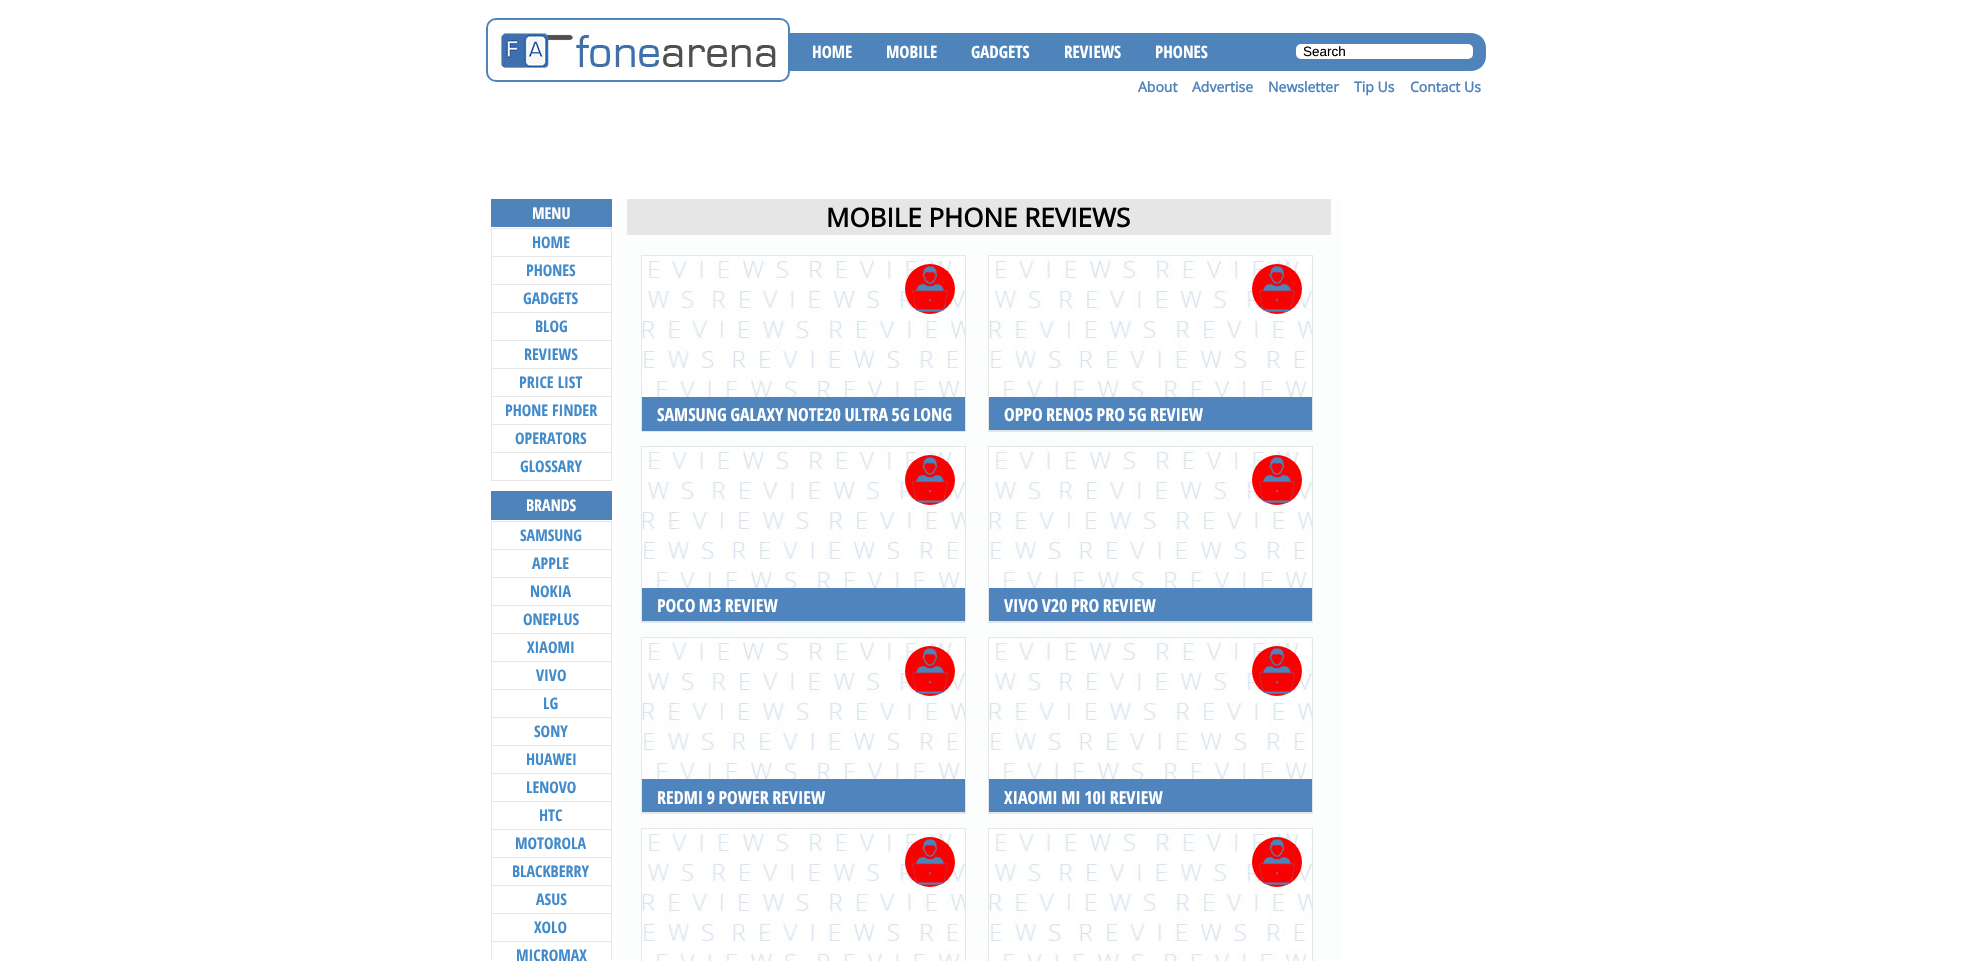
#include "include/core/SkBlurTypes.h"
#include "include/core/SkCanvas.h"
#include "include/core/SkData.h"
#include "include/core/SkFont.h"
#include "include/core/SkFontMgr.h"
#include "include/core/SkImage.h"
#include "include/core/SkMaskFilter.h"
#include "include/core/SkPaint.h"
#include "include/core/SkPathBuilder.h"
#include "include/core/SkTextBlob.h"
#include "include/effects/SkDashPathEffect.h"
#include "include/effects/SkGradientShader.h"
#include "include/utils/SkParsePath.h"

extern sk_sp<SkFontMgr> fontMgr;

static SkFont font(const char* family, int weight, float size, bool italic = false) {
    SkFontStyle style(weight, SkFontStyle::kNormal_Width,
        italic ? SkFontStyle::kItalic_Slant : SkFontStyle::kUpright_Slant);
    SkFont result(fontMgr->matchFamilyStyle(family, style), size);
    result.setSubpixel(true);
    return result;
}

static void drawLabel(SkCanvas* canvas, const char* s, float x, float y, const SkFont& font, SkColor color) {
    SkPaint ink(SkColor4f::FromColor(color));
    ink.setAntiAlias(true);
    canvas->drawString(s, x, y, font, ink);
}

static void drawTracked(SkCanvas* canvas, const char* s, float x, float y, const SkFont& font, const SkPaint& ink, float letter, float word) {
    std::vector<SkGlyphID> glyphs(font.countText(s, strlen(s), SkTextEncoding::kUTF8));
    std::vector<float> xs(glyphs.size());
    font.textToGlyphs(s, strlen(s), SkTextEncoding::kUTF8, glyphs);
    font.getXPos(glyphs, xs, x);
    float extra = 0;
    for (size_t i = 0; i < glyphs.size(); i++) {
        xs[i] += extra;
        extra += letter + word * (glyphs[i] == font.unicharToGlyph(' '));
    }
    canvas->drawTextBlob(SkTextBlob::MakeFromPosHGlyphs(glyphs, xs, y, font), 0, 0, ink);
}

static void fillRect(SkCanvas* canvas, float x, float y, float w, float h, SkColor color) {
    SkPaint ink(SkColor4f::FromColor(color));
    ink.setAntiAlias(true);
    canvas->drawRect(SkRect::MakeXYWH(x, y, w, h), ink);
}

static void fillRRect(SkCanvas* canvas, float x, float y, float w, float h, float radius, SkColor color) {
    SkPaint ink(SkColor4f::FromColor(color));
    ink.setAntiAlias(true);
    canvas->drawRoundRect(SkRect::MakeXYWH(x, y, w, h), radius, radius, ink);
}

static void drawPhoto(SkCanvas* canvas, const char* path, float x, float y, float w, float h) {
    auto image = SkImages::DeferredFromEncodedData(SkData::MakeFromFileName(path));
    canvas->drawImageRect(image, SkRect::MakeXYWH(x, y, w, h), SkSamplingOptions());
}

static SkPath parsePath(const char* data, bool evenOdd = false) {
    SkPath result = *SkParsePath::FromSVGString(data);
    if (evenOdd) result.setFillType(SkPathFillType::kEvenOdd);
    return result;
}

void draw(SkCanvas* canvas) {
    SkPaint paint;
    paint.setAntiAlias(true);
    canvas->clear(0xFFFFFFFF);
    fillRect(canvas, 491, 199, 121, 28, 0xFF4F84BB);
    SkFont font1 = font("Open Sans Condensed", 700, 16);
    drawLabel(canvas, "MENU", 532, 219, font1, 0xFFFFFFFF);
    fillRect(canvas, 491, 480, 121, 1, 0xFFE6E6E6);
    fillRect(canvas, 491, 228, 121, 1, 0xFFE7E7E7);
    fillRect(canvas, 611, 228, 1, 28, 0xFFE7E7E7);
    fillRect(canvas, 491, 228, 1, 28, 0xFFE7E7E7);
    drawLabel(canvas, "HOME", 532, 248, font1, 0xFF428BCA);
    fillRect(canvas, 491, 256, 121, 1, 0xFFE7E7E7);
    fillRect(canvas, 611, 256, 1, 28, 0xFFE7E7E7);
    fillRect(canvas, 491, 256, 1, 28, 0xFFE7E7E7);
    drawLabel(canvas, "PHONES", 526, 276, font1, 0xFF428BCA);
    fillRect(canvas, 491, 284, 121, 1, 0xFFE7E7E7);
    fillRect(canvas, 611, 284, 1, 28, 0xFFE7E7E7);
    fillRect(canvas, 491, 284, 1, 28, 0xFFE7E7E7);
    drawLabel(canvas, "GADGETS", 523, 304, font1, 0xFF428BCA);
    fillRect(canvas, 491, 312, 121, 1, 0xFFE7E7E7);
    fillRect(canvas, 611, 312, 1, 28, 0xFFE7E7E7);
    fillRect(canvas, 491, 312, 1, 28, 0xFFE7E7E7);
    drawLabel(canvas, "BLOG", 535, 332, font1, 0xFF428BCA);
    fillRect(canvas, 491, 340, 121, 1, 0xFFE7E7E7);
    fillRect(canvas, 611, 340, 1, 28, 0xFFE7E7E7);
    fillRect(canvas, 491, 340, 1, 28, 0xFFE7E7E7);
    drawLabel(canvas, "REVIEWS", 524, 360, font1, 0xFF428BCA);
    fillRect(canvas, 491, 368, 121, 1, 0xFFE7E7E7);
    fillRect(canvas, 611, 368, 1, 28, 0xFFE7E7E7);
    fillRect(canvas, 491, 368, 1, 28, 0xFFE7E7E7);
    drawLabel(canvas, "PRICE LIST", 519, 388, font1, 0xFF428BCA);
    fillRect(canvas, 491, 396, 121, 1, 0xFFE7E7E7);
    fillRect(canvas, 611, 396, 1, 28, 0xFFE7E7E7);
    fillRect(canvas, 491, 396, 1, 28, 0xFFE7E7E7);
    drawLabel(canvas, "PHONE FINDER", 505, 416, font1, 0xFF428BCA);
    fillRect(canvas, 491, 424, 121, 1, 0xFFE7E7E7);
    fillRect(canvas, 611, 424, 1, 28, 0xFFE7E7E7);
    fillRect(canvas, 491, 424, 1, 28, 0xFFE7E7E7);
    drawLabel(canvas, "OPERATORS", 515, 444, font1, 0xFF428BCA);
    fillRect(canvas, 491, 452, 121, 1, 0xFFE7E7E7);
    fillRect(canvas, 611, 452, 1, 28, 0xFFE7E7E7);
    fillRect(canvas, 491, 452, 1, 28, 0xFFE7E7E7);
    drawLabel(canvas, "GLOSSARY", 520, 472, font1, 0xFF428BCA);
    fillRect(canvas, 491, 491, 121, 29, 0xFF4F84BB);
    drawLabel(canvas, "BRANDS", 526, 511, font1, 0xFFFFFFFF);
    fillRect(canvas, 491, 521, 121, 1, 0xFFE7E7E7);
    fillRect(canvas, 611, 521, 1, 28, 0xFFE7E7E7);
    fillRect(canvas, 491, 521, 1, 28, 0xFFE7E7E7);
    drawLabel(canvas, "SAMSUNG", 520, 541, font1, 0xFF428BCA);
    fillRect(canvas, 491, 549, 121, 1, 0xFFE7E7E7);
    fillRect(canvas, 611, 549, 1, 28, 0xFFE7E7E7);
    fillRect(canvas, 491, 549, 1, 28, 0xFFE7E7E7);
    drawLabel(canvas, "APPLE", 532, 569, font1, 0xFF428BCA);
    fillRect(canvas, 491, 577, 121, 1, 0xFFE7E7E7);
    fillRect(canvas, 611, 577, 1, 28, 0xFFE7E7E7);
    fillRect(canvas, 491, 577, 1, 28, 0xFFE7E7E7);
    drawLabel(canvas, "NOKIA", 530, 597, font1, 0xFF428BCA);
    fillRect(canvas, 491, 605, 121, 1, 0xFFE7E7E7);
    fillRect(canvas, 611, 605, 1, 28, 0xFFE7E7E7);
    fillRect(canvas, 491, 605, 1, 28, 0xFFE7E7E7);
    drawLabel(canvas, "ONEPLUS", 523, 625, font1, 0xFF428BCA);
    fillRect(canvas, 491, 633, 121, 1, 0xFFE7E7E7);
    fillRect(canvas, 611, 633, 1, 28, 0xFFE7E7E7);
    fillRect(canvas, 491, 633, 1, 28, 0xFFE7E7E7);
    drawLabel(canvas, "XIAOMI", 527, 653, font1, 0xFF428BCA);
    fillRect(canvas, 491, 661, 121, 1, 0xFFE7E7E7);
    fillRect(canvas, 611, 661, 1, 28, 0xFFE7E7E7);
    fillRect(canvas, 491, 661, 1, 28, 0xFFE7E7E7);
    drawLabel(canvas, "VIVO", 536, 681, font1, 0xFF428BCA);
    fillRect(canvas, 491, 689, 121, 1, 0xFFE7E7E7);
    fillRect(canvas, 611, 689, 1, 28, 0xFFE7E7E7);
    fillRect(canvas, 491, 689, 1, 28, 0xFFE7E7E7);
    drawLabel(canvas, "LG", 543, 709, font1, 0xFF428BCA);
    fillRect(canvas, 491, 717, 121, 1, 0xFFE7E7E7);
    fillRect(canvas, 611, 717, 1, 28, 0xFFE7E7E7);
    fillRect(canvas, 491, 717, 1, 28, 0xFFE7E7E7);
    drawLabel(canvas, "SONY", 534, 737, font1, 0xFF428BCA);
    fillRect(canvas, 491, 745, 121, 1, 0xFFE7E7E7);
    fillRect(canvas, 611, 745, 1, 28, 0xFFE7E7E7);
    fillRect(canvas, 491, 745, 1, 28, 0xFFE7E7E7);
    drawLabel(canvas, "HUAWEI", 526, 765, font1, 0xFF428BCA);
    fillRect(canvas, 491, 773, 121, 1, 0xFFE7E7E7);
    fillRect(canvas, 611, 773, 1, 28, 0xFFE7E7E7);
    fillRect(canvas, 491, 773, 1, 28, 0xFFE7E7E7);
    drawLabel(canvas, "LENOVO", 526, 793, font1, 0xFF428BCA);
    fillRect(canvas, 491, 801, 121, 1, 0xFFE7E7E7);
    fillRect(canvas, 611, 801, 1, 28, 0xFFE7E7E7);
    fillRect(canvas, 491, 801, 1, 28, 0xFFE7E7E7);
    drawLabel(canvas, "HTC", 539, 821, font1, 0xFF428BCA);
    fillRect(canvas, 491, 829, 121, 1, 0xFFE7E7E7);
    fillRect(canvas, 611, 829, 1, 28, 0xFFE7E7E7);
    fillRect(canvas, 491, 829, 1, 28, 0xFFE7E7E7);
    drawLabel(canvas, "MOTOROLA", 515, 849, font1, 0xFF428BCA);
    fillRect(canvas, 491, 857, 121, 1, 0xFFE7E7E7);
    fillRect(canvas, 611, 857, 1, 28, 0xFFE7E7E7);
    fillRect(canvas, 491, 857, 1, 28, 0xFFE7E7E7);
    drawLabel(canvas, "BLACKBERRY", 512, 877, font1, 0xFF428BCA);
    fillRect(canvas, 491, 885, 121, 1, 0xFFE7E7E7);
    fillRect(canvas, 611, 885, 1, 28, 0xFFE7E7E7);
    fillRect(canvas, 491, 885, 1, 28, 0xFFE7E7E7);
    drawLabel(canvas, "ASUS", 536, 905, font1, 0xFF428BCA);
    fillRect(canvas, 491, 913, 121, 1, 0xFFE7E7E7);
    fillRect(canvas, 611, 913, 1, 28, 0xFFE7E7E7);
    fillRect(canvas, 491, 913, 1, 28, 0xFFE7E7E7);
    drawLabel(canvas, "XOLO", 534, 933, font1, 0xFF428BCA);
    fillRect(canvas, 491, 941, 121, 1, 0xFFE7E7E7);
    fillRect(canvas, 611, 941, 1, 20, 0xFFE7E7E7);
    fillRect(canvas, 491, 941, 1, 20, 0xFFE7E7E7);
    drawLabel(canvas, "MICROMAX", 516, 961, font1, 0xFF428BCA);
    drawPhoto(canvas, "assets/img1.png", 496, 28, 280, 40);
    paint.setStroke(true);
    paint.setStrokeWidth(2);
    paint.setColor(0xFF4F84BB);
    canvas->drawRoundRect(SkRect::MakeXYWH(487, 19, 302, 62), 9, 9, paint);
    paint.setStroke(false);
    canvas->drawPath(parsePath("M790 33H1471C1479.5 33 1486 39.5 1486 48V56C1486 64.5 1479.5 71 1471 71H790Z"), paint);
    SkFont font2 = font("Open Sans Condensed", 700, 17);
    drawLabel(canvas, "HOME", 812, 58, font2, 0xFFFFFFFF);
    drawLabel(canvas, "MOBILE", 886, 58, font2, 0xFFFFFFFF);
    drawLabel(canvas, "GADGETS", 971, 58, font2, 0xFFFFFFFF);
    drawLabel(canvas, "REVIEWS", 1064, 58, font2, 0xFFFFFFFF);
    drawLabel(canvas, "PHONES", 1155, 58, font2, 0xFFFFFFFF);
    fillRRect(canvas, 1296, 44, 177, 15, 5, 0xFFFFFFFF);
    SkFont font3 = font("Liberation Sans", 400, 13.5f);
    drawLabel(canvas, "Search", 1303, 56, font3, 0xFF000000);
    SkFont font4 = font("Open Sans", 700, 14);
    drawLabel(canvas, "About", 1138, 92, font4, 0xFF4F84BB);
    drawLabel(canvas, "Advertise", 1192, 92, font4, 0xFF4F84BB);
    drawLabel(canvas, "Newsletter", 1268, 92, font4, 0xFF4F84BB);
    drawLabel(canvas, "Tip Us", 1354, 92, font4, 0xFF4F84BB);
    drawLabel(canvas, "Contact Us", 1410, 92, font4, 0xFF4F84BB);
    fillRect(canvas, 617, 199, 724, 762, 0xFFFCFEFE);
    fillRect(canvas, 627, 199, 704, 36, 0xFFE6E6E6);
    SkFont font5 = font("Open Sans", 700, 26);
    drawLabel(canvas, "MOBILE PHONE REVIEWS", 826, 227, font5, 0xFF000000);
    paint.setStroke(true);
    paint.setStrokeWidth(1);
    paint.setColor(0xFFE6E6E6);
    canvas->drawRect(SkRect::MakeXYWH(641.5f, 255.5f, 324, 176), paint);
    drawPhoto(canvas, "assets/img2.png", 642, 256, 323, 141);
    paint.setStroke(false);
    paint.setColor(0xFFFF0000);
    canvas->drawCircle(930, 289, 25, paint);
    drawPhoto(canvas, "assets/img3.png", 906, 265, 48, 48);
    fillRect(canvas, 642, 397, 323, 34, 0xFF4F84BD);
    SkFont font6 = font("Open Sans Condensed", 700, 18);
    paint.setColor(0xFFFFFFFF);
    drawTracked(canvas, "SAMSUNG GALAXY NOTE20 ULTRA 5G LONG", 657, 421, font6, paint, 0, -1);
    paint.setStroke(true);
    paint.setColor(0xFFE6E6E6);
    canvas->drawRect(SkRect::MakeXYWH(988.5f, 255.5f, 324, 176), paint);
    drawPhoto(canvas, "assets/img2.png", 989, 256, 323, 141);
    paint.setStroke(false);
    paint.setColor(0xFFFF0000);
    canvas->drawCircle(1277, 289, 25, paint);
    drawPhoto(canvas, "assets/img3.png", 1253, 265, 48, 48);
    fillRect(canvas, 989, 397, 323, 33, 0xFF4F84BD);
    paint.setColor(0xFFFFFFFF);
    drawTracked(canvas, "OPPO RENO5 PRO 5G REVIEW", 1004, 421, font6, paint, 0, -1);
    fillRect(canvas, 989, 430, 323, 1, 0xFFE6E6E6);
    paint.setStroke(true);
    paint.setColor(0xFFE6E6E6);
    canvas->drawRect(SkRect::MakeXYWH(641.5f, 446.5f, 324, 176), paint);
    drawPhoto(canvas, "assets/img2.png", 642, 447, 323, 141);
    paint.setStroke(false);
    paint.setColor(0xFFFF0000);
    canvas->drawCircle(930, 480, 25, paint);
    drawPhoto(canvas, "assets/img3.png", 906, 456, 48, 48);
    fillRect(canvas, 642, 588, 323, 33, 0xFF4F84BD);
    paint.setColor(0xFFFFFFFF);
    drawTracked(canvas, "POCO M3 REVIEW", 657, 612, font6, paint, 0, -1);
    fillRect(canvas, 642, 621, 323, 1, 0xFFE6E6E6);
    paint.setStroke(true);
    paint.setColor(0xFFE6E6E6);
    canvas->drawRect(SkRect::MakeXYWH(988.5f, 446.5f, 324, 176), paint);
    drawPhoto(canvas, "assets/img2.png", 989, 447, 323, 141);
    paint.setStroke(false);
    paint.setColor(0xFFFF0000);
    canvas->drawCircle(1277, 480, 25, paint);
    drawPhoto(canvas, "assets/img3.png", 1253, 456, 48, 48);
    fillRect(canvas, 989, 588, 323, 33, 0xFF4F84BD);
    paint.setColor(0xFFFFFFFF);
    drawTracked(canvas, "VIVO V20 PRO REVIEW", 1004, 612, font6, paint, 0, -1);
    fillRect(canvas, 989, 621, 323, 1, 0xFFE6E6E6);
    paint.setStroke(true);
    paint.setColor(0xFFE6E6E6);
    canvas->drawRect(SkRect::MakeXYWH(641.5f, 637.5f, 324, 176), paint);
    drawPhoto(canvas, "assets/img2.png", 642, 638, 323, 141);
    paint.setStroke(false);
    paint.setColor(0xFFFF0000);
    canvas->drawCircle(930, 671, 25, paint);
    drawPhoto(canvas, "assets/img3.png", 906, 647, 48, 48);
    fillRect(canvas, 642, 779, 323, 33, 0xFF4F84BD);
    paint.setColor(0xFFFFFFFF);
    drawTracked(canvas, "REDMI 9 POWER REVIEW", 657, 804, font6, paint, 0, -1);
    fillRect(canvas, 642, 812, 323, 1, 0xFFE6E6E6);
    paint.setStroke(true);
    paint.setColor(0xFFE6E6E6);
    canvas->drawRect(SkRect::MakeXYWH(988.5f, 637.5f, 324, 176), paint);
    drawPhoto(canvas, "assets/img2.png", 989, 638, 323, 141);
    paint.setStroke(false);
    paint.setColor(0xFFFF0000);
    canvas->drawCircle(1277, 671, 25, paint);
    drawPhoto(canvas, "assets/img3.png", 1253, 647, 48, 48);
    fillRect(canvas, 989, 779, 323, 33, 0xFF4F84BD);
    paint.setColor(0xFFFFFFFF);
    drawTracked(canvas, "XIAOMI MI 10I REVIEW", 1004, 804, font6, paint, 0, -1);
    fillRect(canvas, 989, 812, 323, 1, 0xFFE6E6E6);
    paint.setStroke(true);
    paint.setColor(0xFFE6E6E6);
    canvas->drawRect(SkRect::MakeXYWH(641.5f, 828.5f, 324, 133), paint);
    drawPhoto(canvas, "assets/img4.png", 642, 829, 323, 132);
    paint.setStroke(false);
    paint.setColor(0xFFFF0000);
    canvas->drawCircle(930, 862, 25, paint);
    drawPhoto(canvas, "assets/img3.png", 906, 838, 48, 48);
    paint.setStroke(true);
    paint.setColor(0xFFE6E6E6);
    canvas->drawRect(SkRect::MakeXYWH(988.5f, 828.5f, 324, 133), paint);
    drawPhoto(canvas, "assets/img4.png", 989, 829, 323, 132);
    paint.setStroke(false);
    paint.setColor(0xFFFF0000);
    canvas->drawCircle(1277, 862, 25, paint);
    drawPhoto(canvas, "assets/img3.png", 1253, 838, 48, 48);
}
